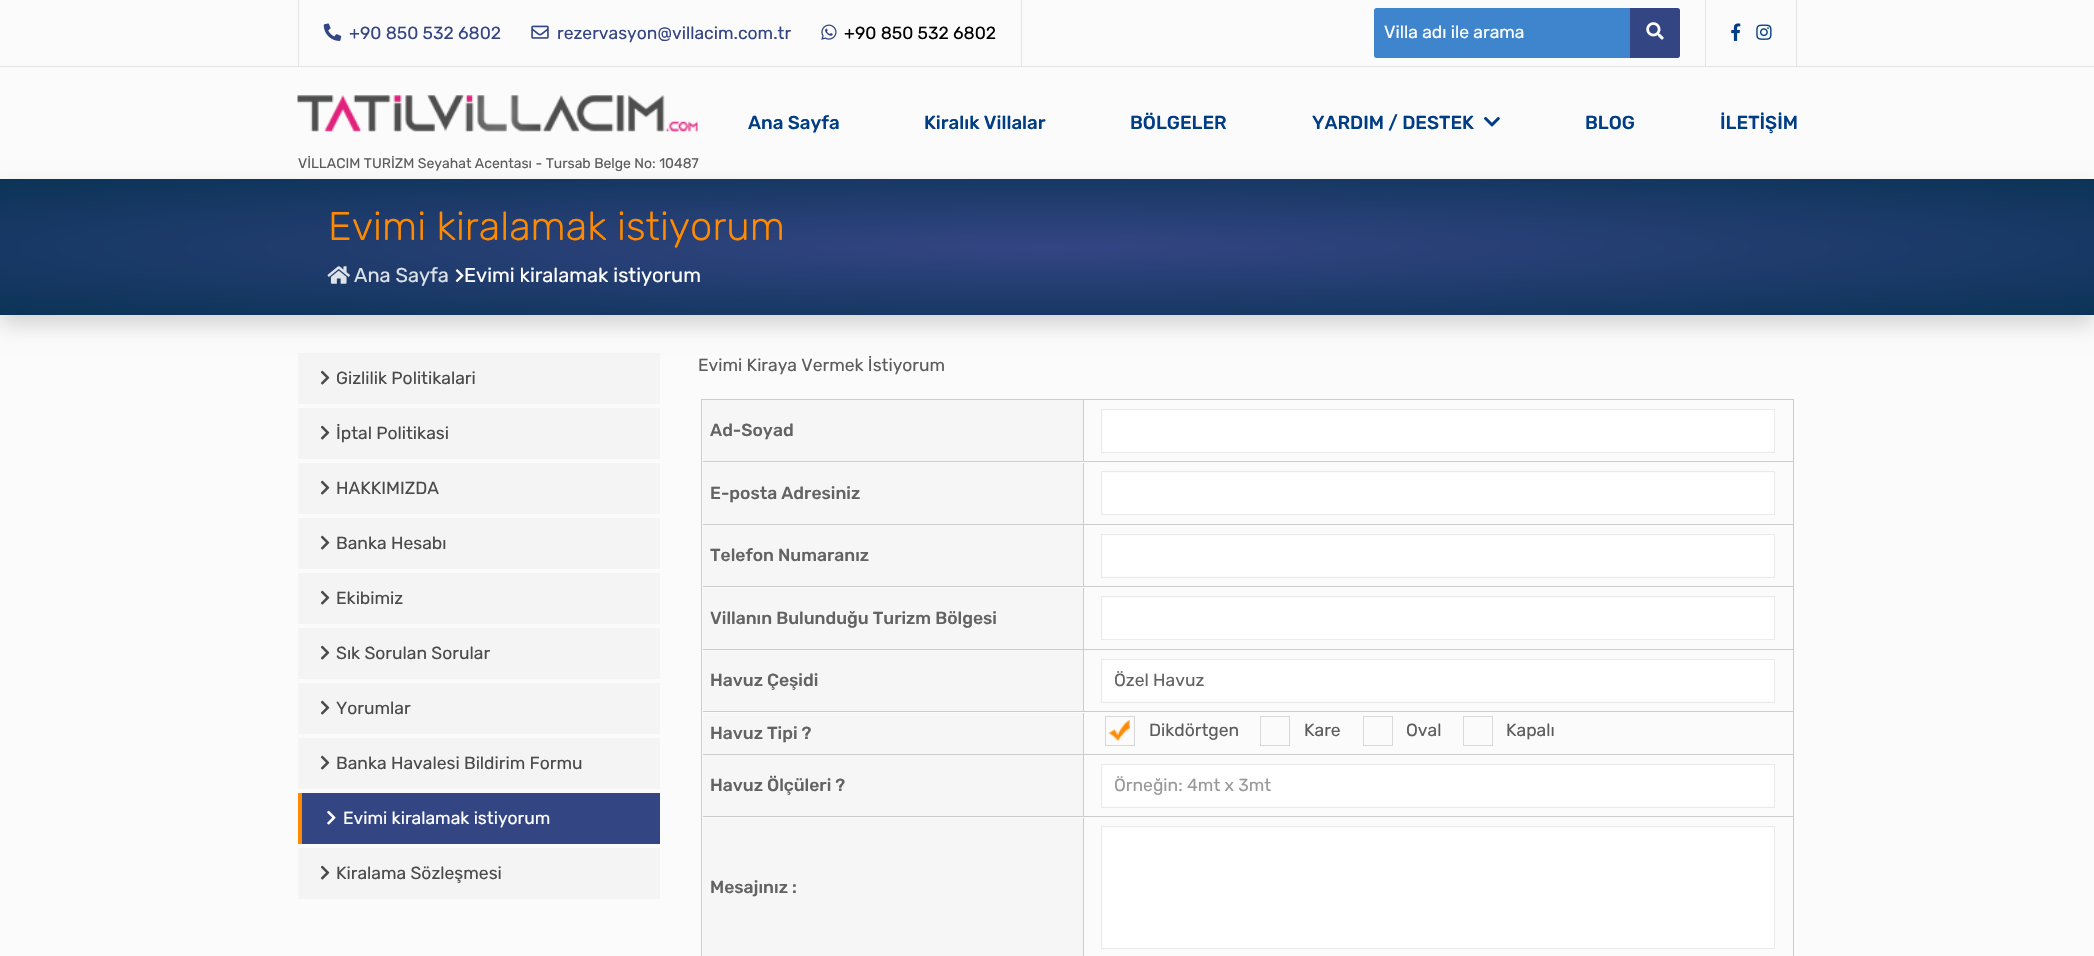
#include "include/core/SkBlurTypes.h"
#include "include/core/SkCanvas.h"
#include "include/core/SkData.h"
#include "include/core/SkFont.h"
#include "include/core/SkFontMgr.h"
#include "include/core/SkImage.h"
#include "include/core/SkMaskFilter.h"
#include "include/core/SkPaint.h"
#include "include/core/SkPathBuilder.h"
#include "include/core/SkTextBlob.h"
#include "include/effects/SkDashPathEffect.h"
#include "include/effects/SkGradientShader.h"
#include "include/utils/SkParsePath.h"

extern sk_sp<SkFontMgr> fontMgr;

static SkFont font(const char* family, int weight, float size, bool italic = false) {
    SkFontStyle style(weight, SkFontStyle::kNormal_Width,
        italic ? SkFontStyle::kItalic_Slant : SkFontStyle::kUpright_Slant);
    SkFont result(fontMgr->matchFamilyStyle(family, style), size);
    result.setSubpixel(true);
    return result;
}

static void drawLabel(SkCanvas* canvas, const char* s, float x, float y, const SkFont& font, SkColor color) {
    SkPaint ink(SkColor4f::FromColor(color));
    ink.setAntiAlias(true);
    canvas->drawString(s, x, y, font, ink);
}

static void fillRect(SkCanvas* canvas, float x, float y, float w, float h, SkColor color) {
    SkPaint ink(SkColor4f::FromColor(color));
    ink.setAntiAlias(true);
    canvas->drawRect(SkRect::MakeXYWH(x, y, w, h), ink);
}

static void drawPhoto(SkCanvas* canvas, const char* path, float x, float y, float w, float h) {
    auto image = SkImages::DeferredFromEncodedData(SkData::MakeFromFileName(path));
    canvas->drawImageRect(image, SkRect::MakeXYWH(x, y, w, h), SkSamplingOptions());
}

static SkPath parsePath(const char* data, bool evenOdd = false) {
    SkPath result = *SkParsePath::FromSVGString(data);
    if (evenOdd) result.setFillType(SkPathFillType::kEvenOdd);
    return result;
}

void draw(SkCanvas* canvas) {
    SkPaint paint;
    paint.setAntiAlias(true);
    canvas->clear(0xFFFBFBFB);
    fillRect(canvas, 0, 66, 2094, 1, 0xFFE4E4E4);
    fillRect(canvas, 1021, 0, 1, 66, 0xFFE4E4E4);
    fillRect(canvas, 298, 0, 1, 66, 0xFFE4E4E4);
    drawPhoto(canvas, "assets/img1.png", 323, 23, 19, 18);
    SkFont font1 = font("Rubik", 400, 17.5f);
    drawLabel(canvas, "+90 850 532 6802", 349, 39, font1, 0xFF344583);
    drawPhoto(canvas, "assets/img2.png", 531, 25, 18, 14);
    drawLabel(canvas, "rezervasyon@villacim.com.tr", 557, 39, font1, 0xFF344583);
    drawPhoto(canvas, "assets/img3.png", 821, 24, 16, 16);
    drawLabel(canvas, "+90 850 532 6802", 844, 39, font1, 0xFF000000);
    paint.setColor(0xFF3F85CE);
    canvas->drawPath(parsePath("M1376.5 8H1630V58H1376.5C1375 58 1374 57 1374 55.5V10.5C1374 9 1375 8 1376.5 8Z"), paint);
    drawLabel(canvas, "Villa adı ile arama", 1384, 38, font1, 0xFFFFFFFF);
    paint.setColor(0xFF344583);
    canvas->drawPath(parsePath("M1630 8H1677.5C1679 8 1680 9 1680 10.5V55.5C1680 57 1679 58 1677.5 58H1630Z"), paint);
    drawPhoto(canvas, "assets/img4.png", 1646, 22, 18, 18);
    fillRect(canvas, 1796, 0, 1, 66, 0xFFE4E4E4);
    fillRect(canvas, 1705, 0, 1, 66, 0xFFE4E4E4);
    drawPhoto(canvas, "assets/img5.png", 1731, 23, 10, 18);
    drawPhoto(canvas, "assets/img6.png", 1756, 24, 16, 16);
    SkFont font2 = font("Rubik", 500, 18.75f);
    drawLabel(canvas, "Ana Sayfa", 748, 129, font2, 0xFF003D84);
    drawLabel(canvas, "Kiralık Villalar", 924, 129, font2, 0xFF003D84);
    drawLabel(canvas, "BÖLGELER", 1130, 129, font2, 0xFF003D84);
    drawLabel(canvas, "YARDIM / DESTEK", 1312, 129, font2, 0xFF003D84);
    drawPhoto(canvas, "assets/img7.png", 1484, 116, 16, 11);
    drawLabel(canvas, "BLOG", 1585, 129, font2, 0xFF003D84);
    drawLabel(canvas, "İLETİŞİM", 1720, 129, font2, 0xFF003D84);
    drawPhoto(canvas, "assets/img8.png", 297, 95, 401, 37);
    SkFont font3 = font("Rubik", 400, 14);
    drawLabel(canvas, "VİLLACIM TURİZM Seyahat Acentası - Tursab Belge No: 10487", 298, 168, font3, 0xFF5C5C5C);
    fillRect(canvas, 298, 353, 362, 51, 0xFFF4F4F4);
    paint.setColor(0x26000000);
    paint.setMaskFilter(SkMaskFilter::MakeBlur(kNormal_SkBlurStyle, 10));
    canvas->drawRect(SkRect::MakeXYWH(0, 189, 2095, 136), paint);
    paint.setMaskFilter(nullptr);
    {
        const SkColor colors[] = {0xFF344583, 0xFF0B3357};
        const float stops[] = {0, 1};
        SkMatrix m = SkMatrix::Translate(1048, 247).preScale(1481, 96);
        paint.setShader(SkGradientShader::MakeRadial({0, 0}, 1, colors, stops, 2, SkTileMode::kClamp, 0, &m));
        paint.setAlpha(255);
    }
    canvas->drawRect(SkRect::MakeXYWH(0, 179, 2094, 136), paint);
    SkFont font4 = font("Rubik", 300, 40);
    drawLabel(canvas, "Evimi kiralamak istiyorum", 328, 240, font4, 0xFFFF8A00);
    drawPhoto(canvas, "assets/img9.png", 327, 266, 23, 18);
    SkFont font5 = font("Rubik", 400, 20);
    drawLabel(canvas, "Ana Sayfa", 354, 282, font5, 0xFFDDE2E9);
    drawPhoto(canvas, "assets/img10.png", 455, 269, 9, 13);
    drawLabel(canvas, "Evimi kiralamak istiyorum", 464, 282, font5, 0xFFFFFFFF);
    drawPhoto(canvas, "assets/img11.png", 320, 370, 10, 15);
    drawLabel(canvas, "Gizlilik Politikalari", 336, 384, font1, 0xFF4A4A4A);
    fillRect(canvas, 298, 408, 362, 51, 0xFFF4F4F4);
    drawPhoto(canvas, "assets/img11.png", 320, 425, 10, 15);
    drawLabel(canvas, "İptal Politikasi", 336, 439, font1, 0xFF4A4A4A);
    fillRect(canvas, 298, 463, 362, 51, 0xFFF4F4F4);
    drawPhoto(canvas, "assets/img11.png", 320, 480, 10, 15);
    drawLabel(canvas, "HAKKIMIZDA", 336, 494, font1, 0xFF4A4A4A);
    fillRect(canvas, 298, 518, 362, 51, 0xFFF4F4F4);
    drawPhoto(canvas, "assets/img11.png", 320, 535, 10, 15);
    drawLabel(canvas, "Banka Hesabı", 336, 549, font1, 0xFF4A4A4A);
    fillRect(canvas, 298, 573, 362, 51, 0xFFF4F4F4);
    drawPhoto(canvas, "assets/img11.png", 320, 590, 10, 15);
    drawLabel(canvas, "Ekibimiz", 336, 604, font1, 0xFF4A4A4A);
    fillRect(canvas, 298, 628, 362, 51, 0xFFF4F4F4);
    drawPhoto(canvas, "assets/img11.png", 320, 645, 10, 15);
    drawLabel(canvas, "Sık Sorulan Sorular", 336, 659, font1, 0xFF4A4A4A);
    fillRect(canvas, 298, 683, 362, 51, 0xFFF4F4F4);
    drawPhoto(canvas, "assets/img11.png", 320, 700, 10, 15);
    drawLabel(canvas, "Yorumlar", 336, 714, font1, 0xFF4A4A4A);
    fillRect(canvas, 298, 738, 362, 51, 0xFFF4F4F4);
    drawPhoto(canvas, "assets/img11.png", 320, 755, 10, 15);
    drawLabel(canvas, "Banka Havalesi Bildirim Formu", 336, 769, font1, 0xFF4A4A4A);
    fillRect(canvas, 302, 793, 358, 51, 0xFF344583);
    fillRect(canvas, 298, 793, 4, 51, 0xFFFF8A00);
    drawPhoto(canvas, "assets/img12.png", 327, 810, 9, 15);
    drawLabel(canvas, "Evimi kiralamak istiyorum", 343, 824, font1, 0xFFFFFFFF);
    fillRect(canvas, 298, 848, 362, 51, 0xFFF4F4F4);
    drawPhoto(canvas, "assets/img11.png", 320, 865, 10, 15);
    drawLabel(canvas, "Kiralama Sözleşmesi", 336, 879, font1, 0xFF4A4A4A);
    drawLabel(canvas, "Evimi Kiraya Vermek İstiyorum", 698, 371, font1, 0xFF5C5C5C);
    paint.setStroke(true);
    paint.setStrokeWidth(1);
    paint.setShader(nullptr);
    paint.setColor(0xFFCCCCCC);
    canvas->drawRect(SkRect::MakeXYWH(701.5f, 399.5f, 1092, 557), paint);
    fillRect(canvas, 703, 461, 1090, 1, 0xFFCCCCCC);
    fillRect(canvas, 703, 400, 380, 61, 0xFFF6F6F6);
    fillRect(canvas, 1083, 400, 1, 61, 0xFFCCCCCC);
    SkFont font6 = font("Rubik", 500, 17.5f);
    drawLabel(canvas, "Ad-Soyad", 710, 436, font6, 0xFF636363);
    fillRect(canvas, 1103, 410, 671, 41, 0xFFFFFFFF);
    paint.setColor(0xFFEAEAEA);
    canvas->drawRect(SkRect::MakeXYWH(1101.5f, 409.5f, 673, 43), paint);
    fillRect(canvas, 703, 524, 1090, 1, 0xFFCCCCCC);
    fillRect(canvas, 703, 463, 380, 61, 0xFFF6F6F6);
    fillRect(canvas, 1083, 463, 1, 61, 0xFFCCCCCC);
    drawLabel(canvas, "E-posta Adresiniz", 710, 499, font6, 0xFF636363);
    fillRect(canvas, 1103, 473, 671, 41, 0xFFFFFFFF);
    canvas->drawRect(SkRect::MakeXYWH(1101.5f, 471.5f, 673, 43), paint);
    fillRect(canvas, 703, 586, 1090, 1, 0xFFCCCCCC);
    fillRect(canvas, 703, 525, 380, 61, 0xFFF6F6F6);
    fillRect(canvas, 1083, 525, 1, 61, 0xFFCCCCCC);
    drawLabel(canvas, "Telefon Numaranız", 710, 561, font6, 0xFF636363);
    fillRect(canvas, 1103, 535, 671, 41, 0xFFFFFFFF);
    canvas->drawRect(SkRect::MakeXYWH(1101.5f, 534.5f, 673, 43), paint);
    fillRect(canvas, 703, 649, 1090, 1, 0xFFCCCCCC);
    fillRect(canvas, 703, 588, 380, 61, 0xFFF6F6F6);
    fillRect(canvas, 1083, 588, 1, 61, 0xFFCCCCCC);
    drawLabel(canvas, "Villanın Bulunduğu Turizm Bölgesi", 710, 624, font6, 0xFF636363);
    fillRect(canvas, 1103, 598, 671, 41, 0xFFFFFFFF);
    canvas->drawRect(SkRect::MakeXYWH(1101.5f, 596.5f, 673, 43), paint);
    fillRect(canvas, 703, 711, 1090, 1, 0xFFCCCCCC);
    fillRect(canvas, 703, 650, 380, 61, 0xFFF6F6F6);
    fillRect(canvas, 1083, 650, 1, 61, 0xFFCCCCCC);
    drawLabel(canvas, "Havuz Çeşidi", 710, 686, font6, 0xFF636363);
    fillRect(canvas, 1103, 660, 671, 41, 0xFFFFFFFF);
    canvas->drawRect(SkRect::MakeXYWH(1101.5f, 659.5f, 673, 43), paint);
    drawLabel(canvas, "Özel Havuz", 1114, 686, font1, 0xFF636363);
    fillRect(canvas, 703, 754, 1090, 1, 0xFFCCCCCC);
    fillRect(canvas, 703, 713, 380, 41, 0xFFF6F6F6);
    fillRect(canvas, 1083, 713, 1, 41, 0xFFCCCCCC);
    drawLabel(canvas, "Havuz Tipi ?", 710, 739, font6, 0xFF636363);
    drawPhoto(canvas, "assets/img13.png", 1108, 720, 22, 22);
    paint.setColor(0xFFD8D8D8);
    canvas->drawRect(SkRect::MakeXYWH(1105.5f, 716.5f, 29, 29), paint);
    drawLabel(canvas, "Dikdörtgen", 1149, 736, font1, 0xFF5C5C5C);
    canvas->drawRect(SkRect::MakeXYWH(1260.5f, 716.5f, 29, 29), paint);
    drawLabel(canvas, "Kare", 1304, 736, font1, 0xFF5C5C5C);
    canvas->drawRect(SkRect::MakeXYWH(1363.5f, 716.5f, 29, 29), paint);
    drawLabel(canvas, "Oval", 1406, 736, font1, 0xFF5C5C5C);
    canvas->drawRect(SkRect::MakeXYWH(1463.5f, 716.5f, 29, 29), paint);
    drawLabel(canvas, "Kapalı", 1506, 736, font1, 0xFF5C5C5C);
    fillRect(canvas, 703, 816, 1090, 1, 0xFFCCCCCC);
    fillRect(canvas, 703, 755, 380, 61, 0xFFF6F6F6);
    fillRect(canvas, 1083, 755, 1, 61, 0xFFCCCCCC);
    drawLabel(canvas, "Havuz Ölçüleri ?", 710, 791, font6, 0xFF636363);
    fillRect(canvas, 1103, 765, 671, 41, 0xFFFFFFFF);
    paint.setColor(0xFFEAEAEA);
    canvas->drawRect(SkRect::MakeXYWH(1101.5f, 764.5f, 673, 43), paint);
    drawLabel(canvas, "Örneğin: 4mt x 3mt", 1114, 791, font1, 0xFF999999);
    fillRect(canvas, 703, 818, 380, 138, 0xFFF6F6F6);
    fillRect(canvas, 1083, 818, 1, 138, 0xFFCCCCCC);
    drawLabel(canvas, "Mesajınız :", 710, 893, font6, 0xFF636363);
    fillRect(canvas, 1103, 828, 671, 120, 0xFFFFFFFF);
    canvas->drawRect(SkRect::MakeXYWH(1101.5f, 826.5f, 673, 122), paint);
}
